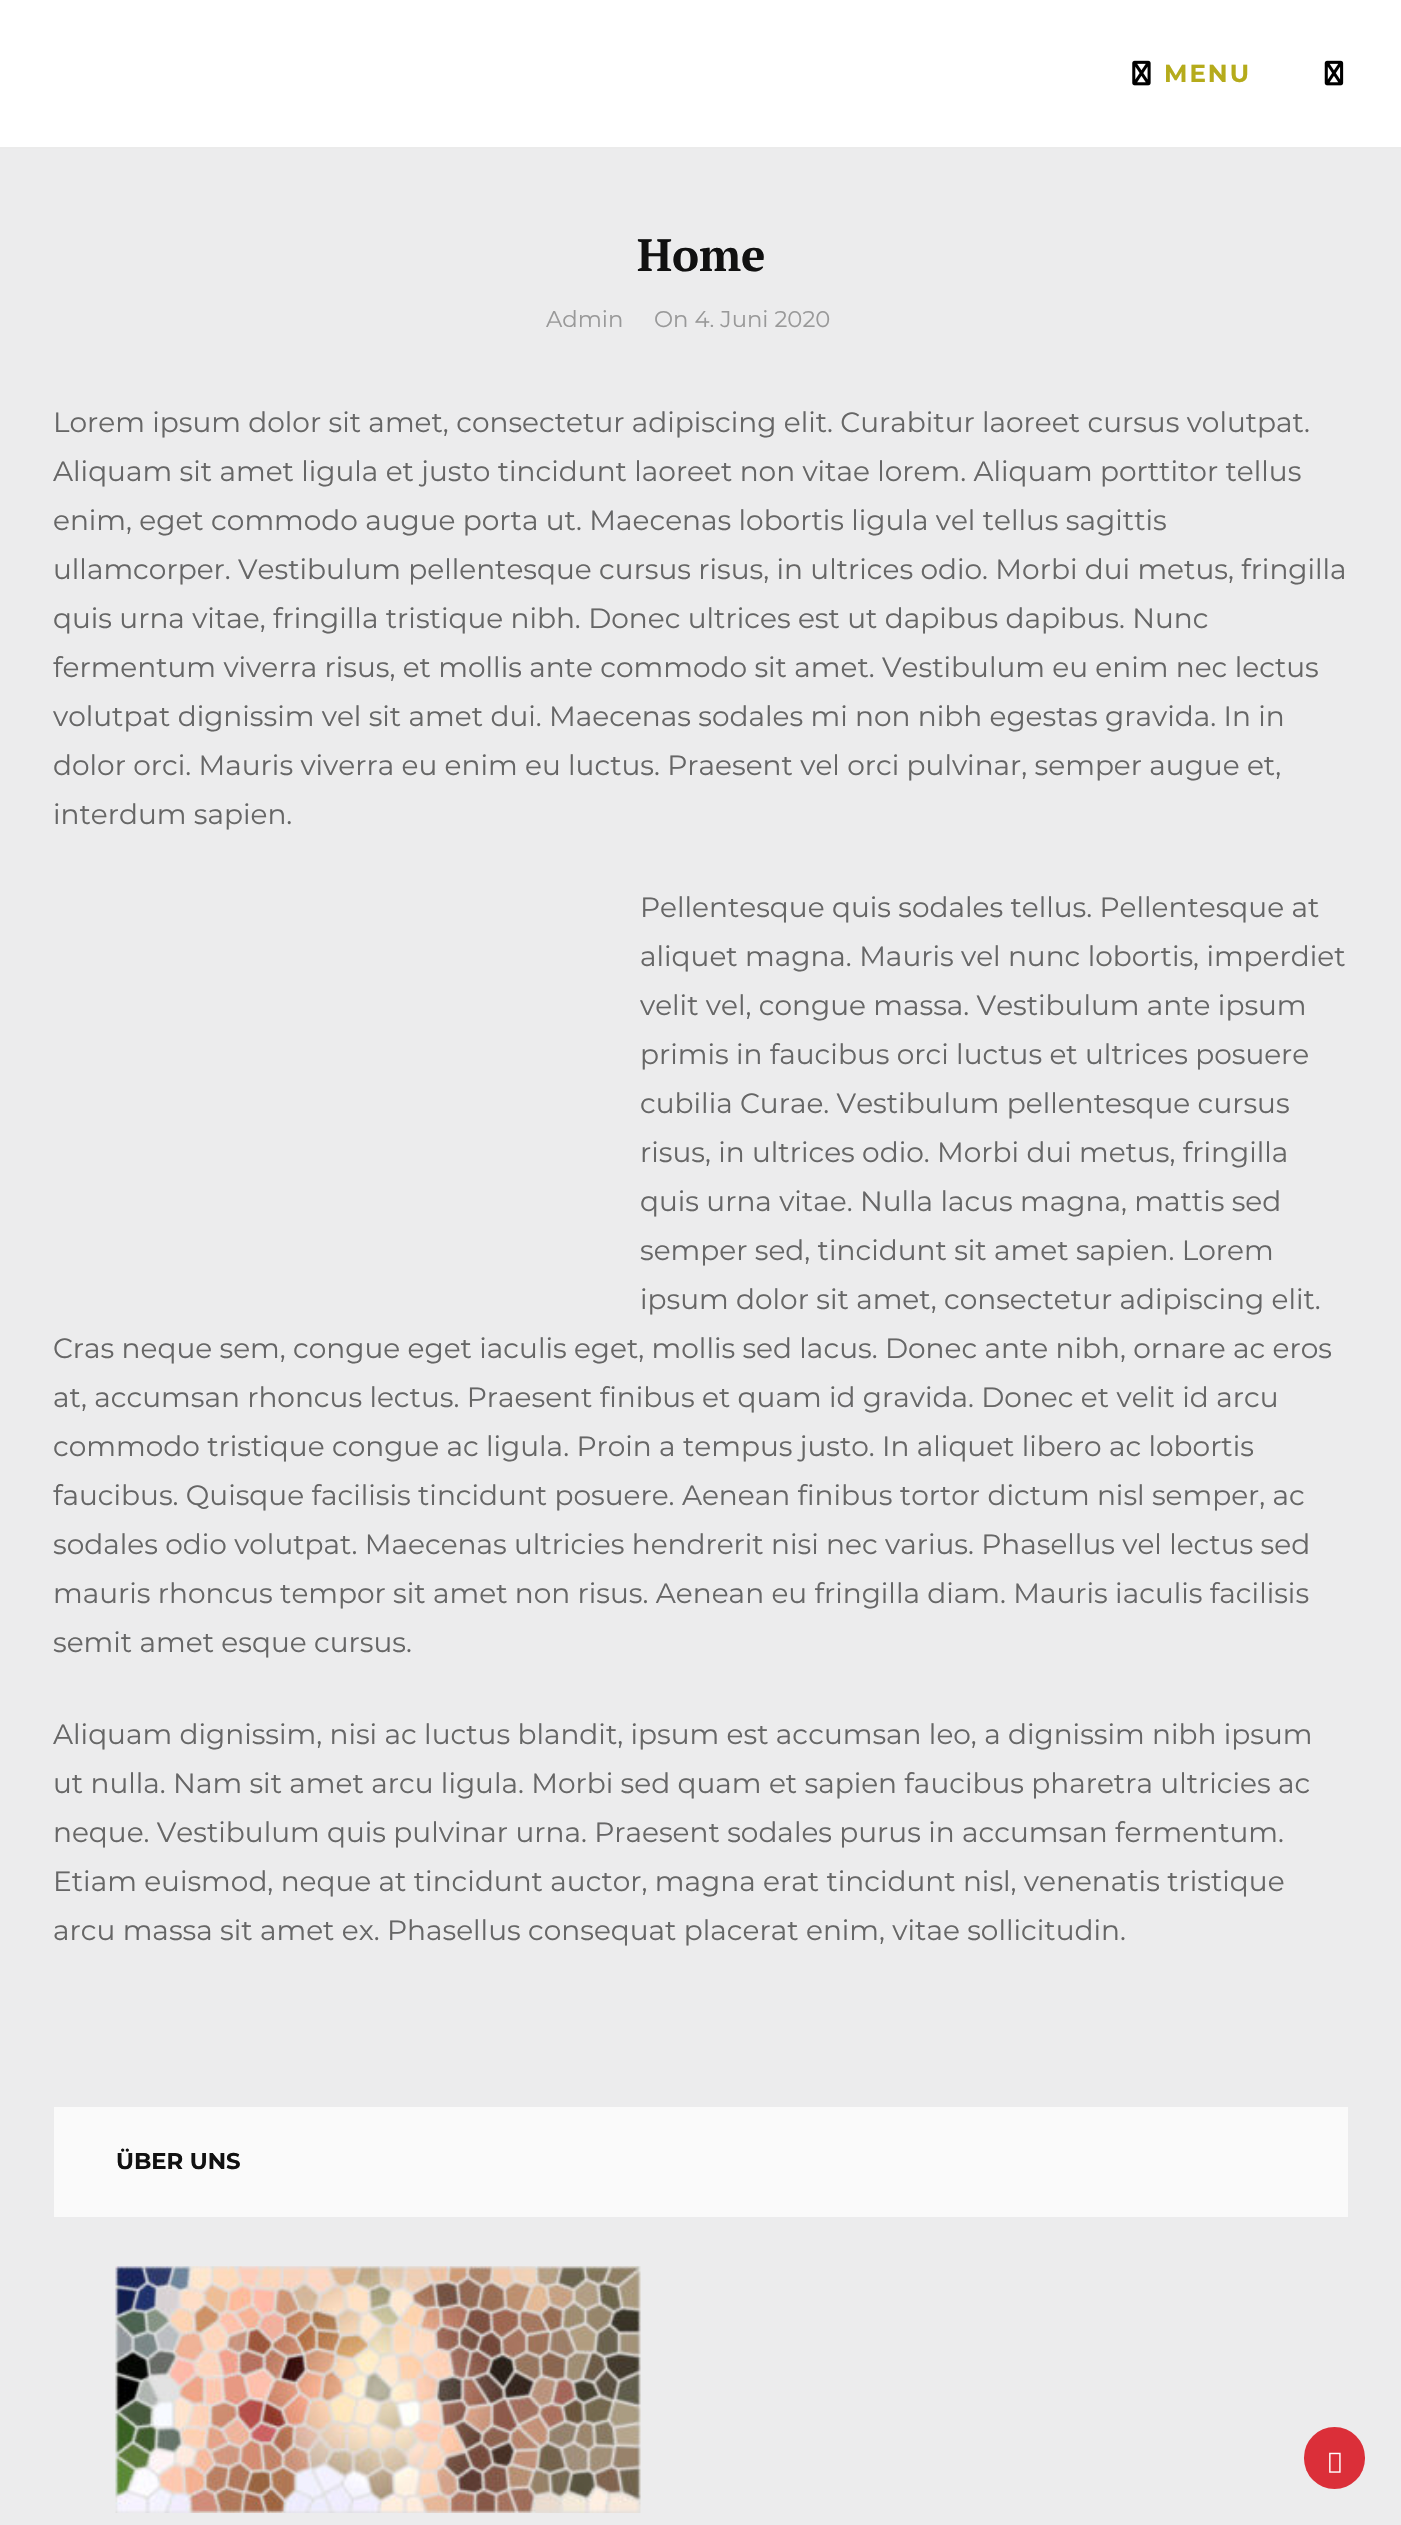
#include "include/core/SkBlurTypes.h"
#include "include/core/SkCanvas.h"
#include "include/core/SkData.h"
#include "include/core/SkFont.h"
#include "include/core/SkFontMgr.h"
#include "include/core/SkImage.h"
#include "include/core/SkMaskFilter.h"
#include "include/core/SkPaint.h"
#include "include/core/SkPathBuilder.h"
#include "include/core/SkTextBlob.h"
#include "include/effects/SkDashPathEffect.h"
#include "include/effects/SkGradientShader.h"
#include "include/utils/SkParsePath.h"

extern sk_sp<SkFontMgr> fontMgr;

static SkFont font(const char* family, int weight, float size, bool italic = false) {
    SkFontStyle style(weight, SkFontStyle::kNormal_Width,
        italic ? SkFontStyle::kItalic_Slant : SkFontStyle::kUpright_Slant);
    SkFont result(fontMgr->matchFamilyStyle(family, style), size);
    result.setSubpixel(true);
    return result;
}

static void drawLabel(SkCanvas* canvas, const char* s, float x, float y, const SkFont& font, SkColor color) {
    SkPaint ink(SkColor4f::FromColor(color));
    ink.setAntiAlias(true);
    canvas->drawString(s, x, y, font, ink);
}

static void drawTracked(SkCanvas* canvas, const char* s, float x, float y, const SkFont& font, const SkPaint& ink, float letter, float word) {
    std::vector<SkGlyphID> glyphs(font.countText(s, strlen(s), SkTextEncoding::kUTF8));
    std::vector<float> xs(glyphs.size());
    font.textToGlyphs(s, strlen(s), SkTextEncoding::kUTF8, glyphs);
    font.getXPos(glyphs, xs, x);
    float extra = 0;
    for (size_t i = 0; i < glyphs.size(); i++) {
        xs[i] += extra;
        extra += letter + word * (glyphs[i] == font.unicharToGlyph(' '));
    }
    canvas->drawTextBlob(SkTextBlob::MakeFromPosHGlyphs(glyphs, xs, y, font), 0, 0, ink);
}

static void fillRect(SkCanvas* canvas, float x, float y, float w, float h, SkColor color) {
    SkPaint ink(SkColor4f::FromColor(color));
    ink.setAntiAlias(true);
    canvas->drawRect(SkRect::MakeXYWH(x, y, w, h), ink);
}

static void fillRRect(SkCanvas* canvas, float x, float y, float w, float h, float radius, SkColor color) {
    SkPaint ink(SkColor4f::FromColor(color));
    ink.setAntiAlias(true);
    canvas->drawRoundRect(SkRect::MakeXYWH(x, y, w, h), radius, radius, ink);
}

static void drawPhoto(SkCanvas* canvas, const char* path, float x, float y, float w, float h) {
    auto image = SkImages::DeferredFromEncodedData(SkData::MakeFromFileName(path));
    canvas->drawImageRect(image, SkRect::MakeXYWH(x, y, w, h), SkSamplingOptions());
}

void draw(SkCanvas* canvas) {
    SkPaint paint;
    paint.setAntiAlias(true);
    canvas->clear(0xFFFFFFFF);
    drawPhoto(canvas, "assets/img1.png", 1132, 60, 19, 26);
    SkFont font1 = font("Montserrat", 700, 24.5f);
    paint.setColor(0xFFB5AB1B);
    drawTracked(canvas, "MENU", 1164, 82, font1, paint, 2, 0);
    drawPhoto(canvas, "assets/img2.png", 1324, 60, 20, 26);
    fillRect(canvas, 0, 149, 1401, 2376, 0xFFECECED);
    fillRect(canvas, 0, 147, 1401, 2, 0xFFEBEBEB);
    SkFont font2 = font("PT Serif", 700, 45.5f);
    drawLabel(canvas, "Home", 637, 271, font2, 0xFF111111);
    SkFont font3 = font("Montserrat", 400, 22.75f);
    drawLabel(canvas, "Admin", 546, 327, font3, 0xFF999999);
    drawLabel(canvas, "On 4. Juni 2020", 654, 327, font3, 0xFF999999);
    SkFont font4 = font("Montserrat", 400, 28);
    drawLabel(canvas, "Lorem ipsum dolor sit amet, consectetur adipiscing elit. Curabitur laoreet cursus volutpat.", 53, 432, font4, 0xFF666666);
    drawLabel(canvas, "Aliquam sit amet ligula et justo tincidunt laoreet non vitae lorem. Aliquam porttitor tellus", 53, 481, font4, 0xFF666666);
    drawLabel(canvas, "enim, eget commodo augue porta ut. Maecenas lobortis ligula vel tellus sagittis", 53, 530, font4, 0xFF666666);
    drawLabel(canvas, "ullamcorper. Vestibulum pellentesque cursus risus, in ultrices odio. Morbi dui metus, fringilla", 53, 579, font4, 0xFF666666);
    drawLabel(canvas, "quis urna vitae, fringilla tristique nibh. Donec ultrices est ut dapibus dapibus. Nunc", 53, 628, font4, 0xFF666666);
    drawLabel(canvas, "fermentum viverra risus, et mollis ante commodo sit amet. Vestibulum eu enim nec lectus", 53, 677, font4, 0xFF666666);
    drawLabel(canvas, "volutpat dignissim vel sit amet dui. Maecenas sodales mi non nibh egestas gravida. In in", 53, 726, font4, 0xFF666666);
    drawLabel(canvas, "dolor orci. Mauris viverra eu enim eu luctus. Praesent vel orci pulvinar, semper augue et,", 53, 775, font4, 0xFF666666);
    drawLabel(canvas, "interdum sapien.", 53, 824, font4, 0xFF666666);
    drawLabel(canvas, "Pellentesque quis sodales tellus. Pellentesque at", 640, 917, font4, 0xFF666666);
    drawLabel(canvas, "aliquet magna. Mauris vel nunc lobortis, imperdiet", 640, 966, font4, 0xFF666666);
    drawLabel(canvas, "velit vel, congue massa. Vestibulum ante ipsum", 640, 1015, font4, 0xFF666666);
    drawLabel(canvas, "primis in faucibus orci luctus et ultrices posuere", 640, 1064, font4, 0xFF666666);
    drawLabel(canvas, "cubilia Curae. Vestibulum pellentesque cursus", 640, 1113, font4, 0xFF666666);
    drawLabel(canvas, "risus, in ultrices odio. Morbi dui metus, fringilla", 640, 1162, font4, 0xFF666666);
    drawLabel(canvas, "quis urna vitae. Nulla lacus magna, mattis sed", 640, 1211, font4, 0xFF666666);
    drawLabel(canvas, "semper sed, tincidunt sit amet sapien. Lorem", 640, 1260, font4, 0xFF666666);
    drawLabel(canvas, "ipsum dolor sit amet, consectetur adipiscing elit.", 640, 1309, font4, 0xFF666666);
    drawLabel(canvas, "Cras neque sem, congue eget iaculis eget, mollis sed lacus. Donec ante nibh, ornare ac eros", 53, 1358, font4, 0xFF666666);
    drawLabel(canvas, "at, accumsan rhoncus lectus. Praesent finibus et quam id gravida. Donec et velit id arcu", 53, 1407, font4, 0xFF666666);
    drawLabel(canvas, "commodo tristique congue ac ligula. Proin a tempus justo. In aliquet libero ac lobortis", 53, 1456, font4, 0xFF666666);
    drawLabel(canvas, "faucibus. Quisque facilisis tincidunt posuere. Aenean finibus tortor dictum nisl semper, ac", 53, 1505, font4, 0xFF666666);
    drawLabel(canvas, "sodales odio volutpat. Maecenas ultricies hendrerit nisi nec varius. Phasellus vel lectus sed", 53, 1554, font4, 0xFF666666);
    drawLabel(canvas, "mauris rhoncus tempor sit amet non risus. Aenean eu fringilla diam. Mauris iaculis facilisis", 53, 1603, font4, 0xFF666666);
    drawLabel(canvas, "semit amet esque cursus.", 53, 1652, font4, 0xFF666666);
    drawLabel(canvas, "Aliquam dignissim, nisi ac luctus blandit, ipsum est accumsan leo, a dignissim nibh ipsum", 53, 1744, font4, 0xFF666666);
    drawLabel(canvas, "ut nulla. Nam sit amet arcu ligula. Morbi sed quam et sapien faucibus pharetra ultricies ac", 53, 1793, font4, 0xFF666666);
    drawLabel(canvas, "neque. Vestibulum quis pulvinar urna. Praesent sodales purus in accumsan fermentum.", 53, 1842, font4, 0xFF666666);
    drawLabel(canvas, "Etiam euismod, neque at tincidunt auctor, magna erat tincidunt nisl, venenatis tristique", 53, 1891, font4, 0xFF666666);
    drawLabel(canvas, "arcu massa sit amet ex. Phasellus consequat placerat enim, vitae sollicitudin.", 53, 1940, font4, 0xFF666666);
    fillRect(canvas, 54, 2107, 1294, 110, 0xFFFAFAFA);
    SkFont font5 = font("Montserrat", 700, 22.75f);
    drawLabel(canvas, "ÜBER UNS", 116, 2169, font5, 0xFF111111);
    drawPhoto(canvas, "assets/img3.png", 115, 2266, 526, 247);
    fillRRect(canvas, 1304, 2427, 61, 62, 30.5f, 0xFFDB2F39);
    drawPhoto(canvas, "assets/img4.png", 1329, 2452, 12, 21);
}
